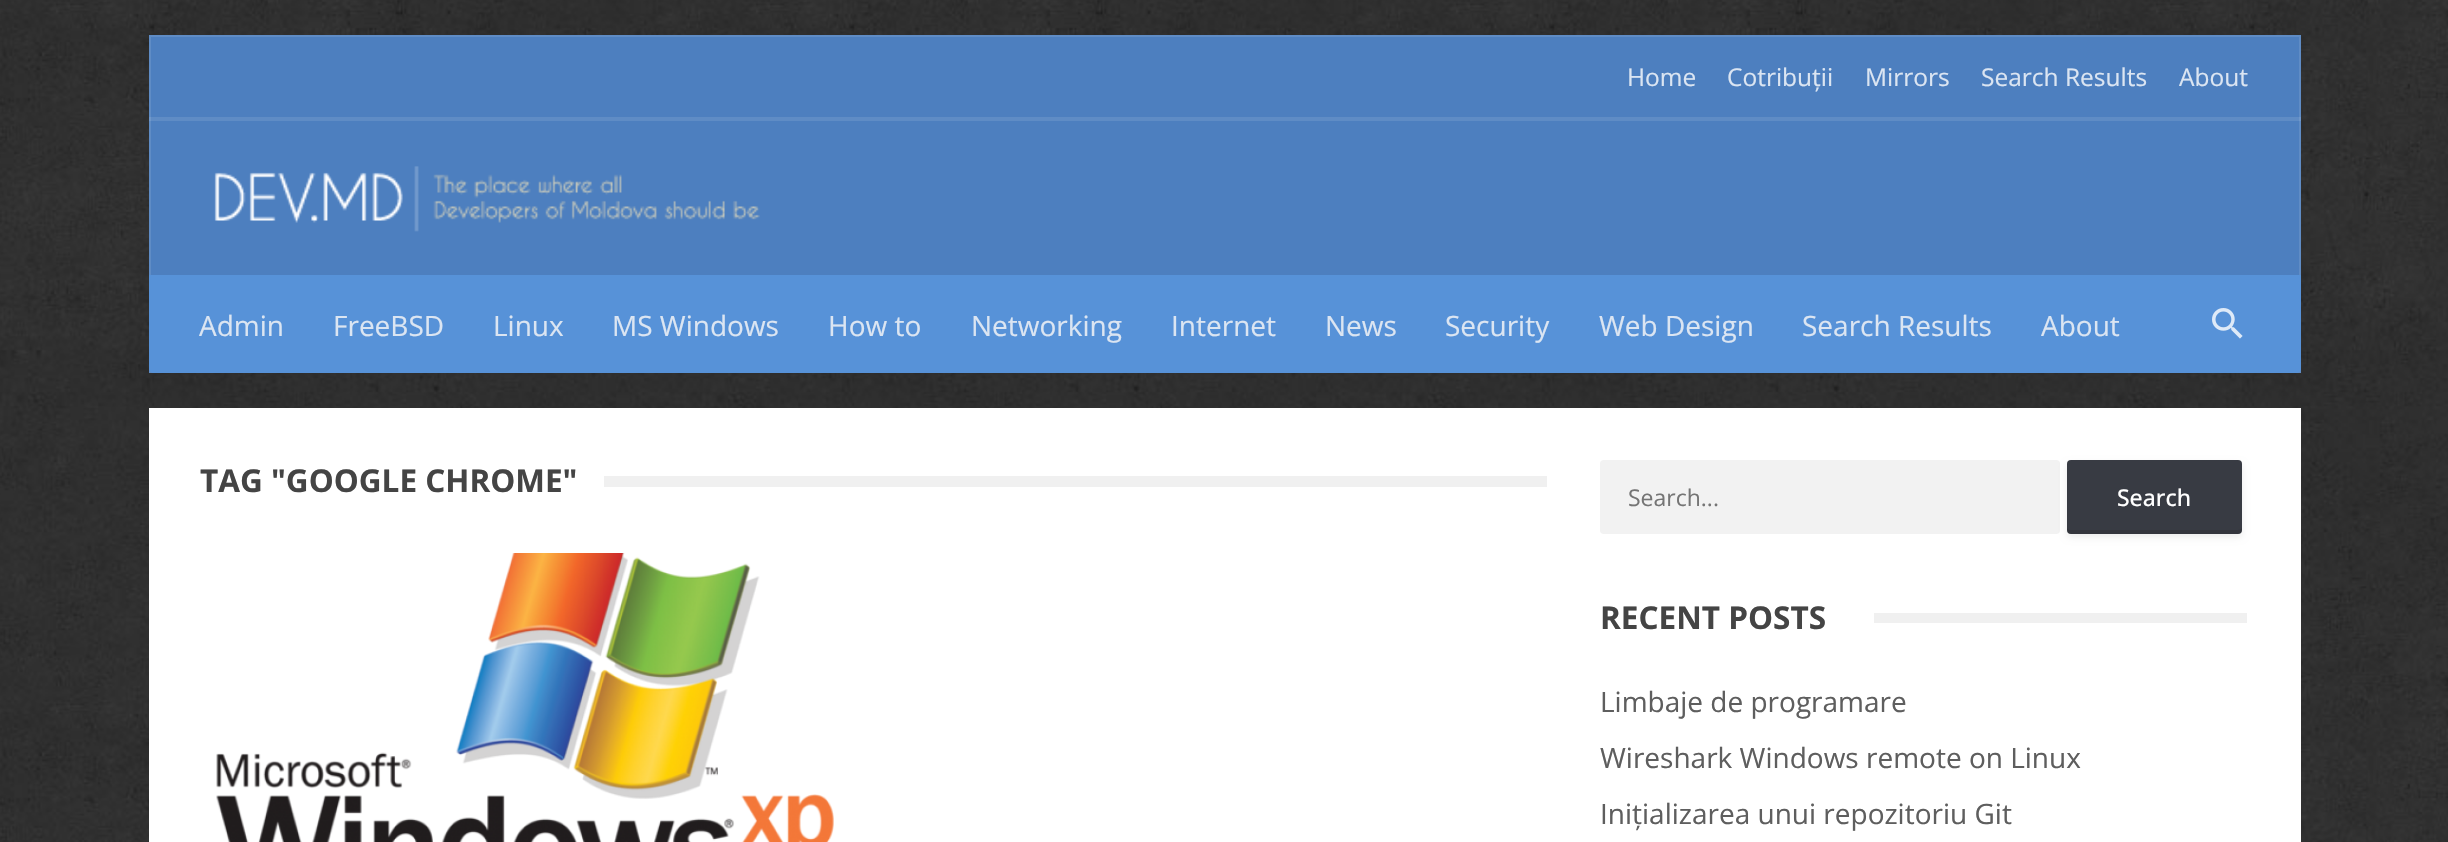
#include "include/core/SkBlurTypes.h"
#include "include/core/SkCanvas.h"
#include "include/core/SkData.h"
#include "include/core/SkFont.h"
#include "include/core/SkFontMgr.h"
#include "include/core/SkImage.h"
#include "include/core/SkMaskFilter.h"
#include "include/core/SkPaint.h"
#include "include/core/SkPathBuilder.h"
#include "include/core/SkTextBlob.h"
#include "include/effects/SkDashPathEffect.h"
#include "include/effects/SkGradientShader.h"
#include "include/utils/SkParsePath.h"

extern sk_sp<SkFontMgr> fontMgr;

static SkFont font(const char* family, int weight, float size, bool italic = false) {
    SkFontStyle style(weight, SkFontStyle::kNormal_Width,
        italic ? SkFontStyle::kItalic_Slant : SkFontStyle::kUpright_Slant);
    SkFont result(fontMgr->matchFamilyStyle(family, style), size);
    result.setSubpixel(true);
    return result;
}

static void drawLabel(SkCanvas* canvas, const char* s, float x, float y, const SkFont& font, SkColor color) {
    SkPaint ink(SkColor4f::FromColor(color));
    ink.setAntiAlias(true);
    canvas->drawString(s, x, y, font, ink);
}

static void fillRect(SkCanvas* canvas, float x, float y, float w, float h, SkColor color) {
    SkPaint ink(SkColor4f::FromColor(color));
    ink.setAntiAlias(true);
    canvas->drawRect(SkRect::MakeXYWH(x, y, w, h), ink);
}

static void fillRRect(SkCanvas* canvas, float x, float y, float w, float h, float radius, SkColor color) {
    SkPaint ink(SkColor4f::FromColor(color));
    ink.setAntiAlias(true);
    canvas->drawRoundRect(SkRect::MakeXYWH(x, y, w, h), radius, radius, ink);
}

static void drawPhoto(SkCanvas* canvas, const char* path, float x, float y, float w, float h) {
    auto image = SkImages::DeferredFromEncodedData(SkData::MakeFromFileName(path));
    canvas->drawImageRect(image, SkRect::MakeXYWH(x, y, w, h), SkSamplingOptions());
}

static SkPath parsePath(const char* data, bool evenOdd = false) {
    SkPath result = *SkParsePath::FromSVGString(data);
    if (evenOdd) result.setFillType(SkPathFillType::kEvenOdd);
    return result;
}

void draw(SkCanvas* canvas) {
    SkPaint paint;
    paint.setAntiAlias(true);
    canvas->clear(0xFFFFFFFF);
    drawPhoto(canvas, "assets/img1.png", 0, 0, 2448, 842);
    fillRect(canvas, 151, 37, 2148, 238, 0xFF4D7FBF);
    paint.setStroke(true);
    paint.setStrokeWidth(2);
    paint.setColor(0xFF5F8CC5);
    canvas->drawRect(SkRect::MakeXYWH(150, 36, 2150, 336), paint);
    fillRect(canvas, 149, 117, 2152, 4, 0x1AFFFFFF);
    SkFont font1 = font("Open Sans", 400, 24.5f);
    drawLabel(canvas, "Home", 1627, 86, font1, 0xFFDBE5F2);
    drawLabel(canvas, "Cotribuții", 1727, 86, font1, 0xFFDBE5F2);
    drawLabel(canvas, "Mirrors", 1865, 86, font1, 0xFFDBE5F2);
    drawLabel(canvas, "Search Results", 1981, 86, font1, 0xFFDBE5F2);
    drawLabel(canvas, "About", 2179, 86, font1, 0xFFDBE5F2);
    drawPhoto(canvas, "assets/img2.png", 214, 166, 546, 66);
    paint.setStroke(false);
    paint.setColor(0xFF5792D8);
    canvas->drawPath(parsePath("M149 275H2301V368C2301 371 2299 373 2296 373H154C151 373 149 371 149 368Z"), paint);
    SkFont font2 = font("Open Sans", 400, 28);
    drawLabel(canvas, "Admin", 199, 336, font2, 0xFFDBE5F2);
    drawLabel(canvas, "FreeBSD", 333, 336, font2, 0xFFDBE5F2);
    drawLabel(canvas, "Linux", 493, 336, font2, 0xFFDBE5F2);
    drawLabel(canvas, "MS Windows", 612, 336, font2, 0xFFDBE5F2);
    drawLabel(canvas, "How to", 828, 336, font2, 0xFFDBE5F2);
    drawLabel(canvas, "Networking", 971, 336, font2, 0xFFDBE5F2);
    drawLabel(canvas, "Internet", 1171, 336, font2, 0xFFDBE5F2);
    drawLabel(canvas, "News", 1325, 336, font2, 0xFFDBE5F2);
    drawLabel(canvas, "Security", 1445, 336, font2, 0xFFDBE5F2);
    drawLabel(canvas, "Web Design", 1599, 336, font2, 0xFFDBE5F2);
    drawLabel(canvas, "Search Results", 1802, 336, font2, 0xFFDBE5F2);
    drawLabel(canvas, "About", 2041, 336, font2, 0xFFDBE5F2);
    drawPhoto(canvas, "assets/img3.png", 2212, 308, 31, 31);
    fillRect(canvas, 149, 408, 2152, 434, 0xFFFFFFFF);
    SkFont font3 = font("Open Sans", 700, 31.5f);
    drawLabel(canvas, "TAG \"GOOGLE CHROME\"", 200, 492, font3, 0xFF444444);
    fillRect(canvas, 604, 476, 943, 11, 0xFFF0F0F0);
    drawPhoto(canvas, "assets/img4.png", 216, 553, 618, 289);
    fillRRect(canvas, 1600, 460, 460, 74, 4, 0xFFF2F2F2);
    SkFont font4 = font("Open Sans", 400, 23);
    drawLabel(canvas, "Search...", 1628, 506, font4, 0xFF757575);
    paint.setColor(0x14000000);
    paint.setMaskFilter(SkMaskFilter::MakeBlur(kNormal_SkBlurStyle, 3.5f));
    canvas->drawRoundRect(SkRect::MakeXYWH(2067, 464, 175, 73), 4, 4, paint);
    paint.setMaskFilter(nullptr);
    fillRRect(canvas, 2067, 460, 175, 74, 4, 0xFF383B43);
    paint.setColor(0x1A000000);
    canvas->drawPath(parsePath("M2067 527V530C2067 532 2069 534 2071 534H2238C2240 534 2242 532 2242 530V527C2242 529 2240 530 2238 530H2070C2068 530 2067 529 2067 527Z"), paint);
    SkFont font5 = font("Open Sans", 500, 23);
    drawLabel(canvas, "Search", 2117, 506, font5, 0xFFFFFFFF);
    drawLabel(canvas, "RECENT POSTS", 1600, 629, font3, 0xFF444444);
    fillRect(canvas, 1874, 613, 373, 10, 0xFFF0F0F0);
    drawLabel(canvas, "Limbaje de programare", 1600, 712, font2, 0xFF5E5E5E);
    drawLabel(canvas, "Wireshark Windows remote on Linux", 1600, 768, font2, 0xFF5E5E5E);
    drawLabel(canvas, "Inițializarea unui repozitoriu Git", 1600, 824, font2, 0xFF5E5E5E);
}
